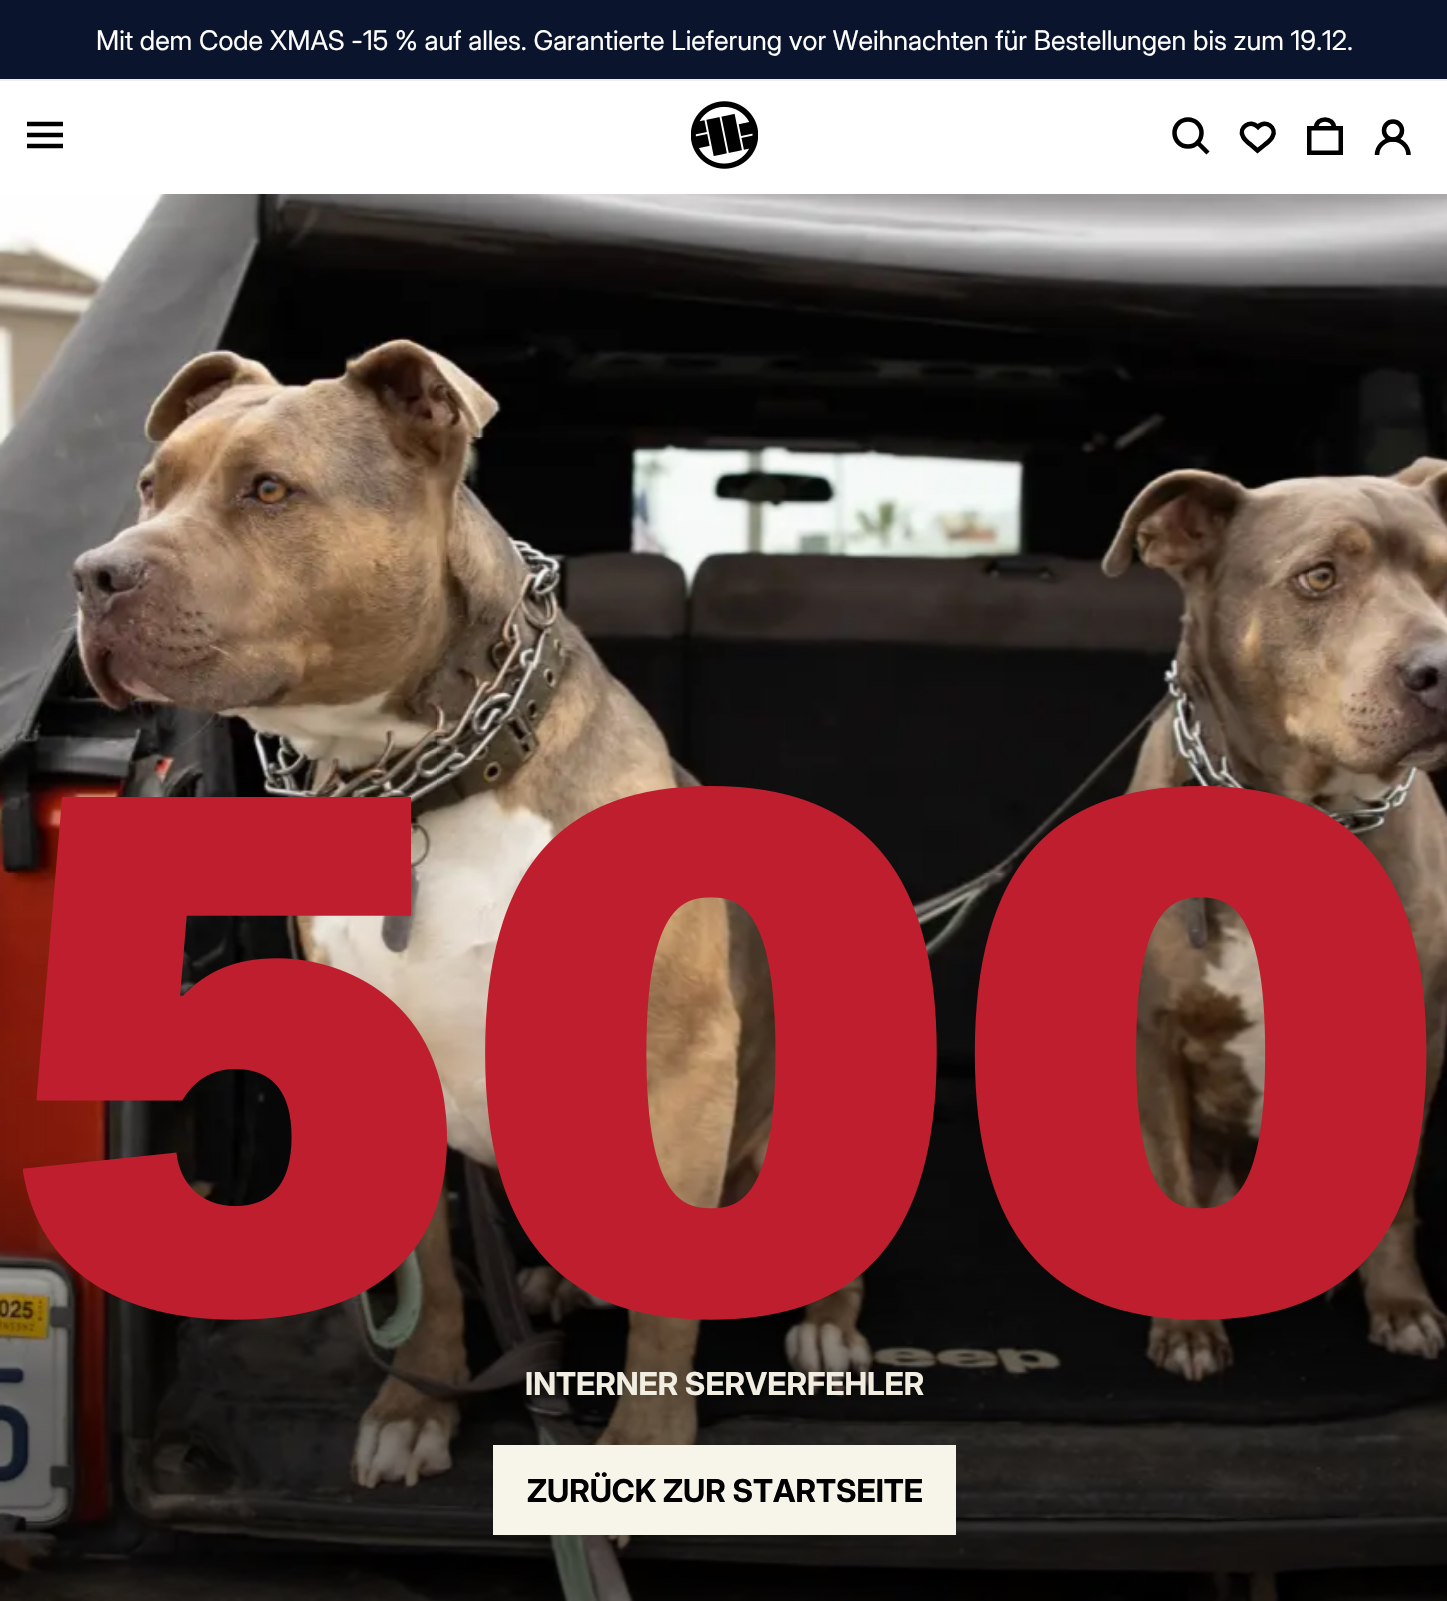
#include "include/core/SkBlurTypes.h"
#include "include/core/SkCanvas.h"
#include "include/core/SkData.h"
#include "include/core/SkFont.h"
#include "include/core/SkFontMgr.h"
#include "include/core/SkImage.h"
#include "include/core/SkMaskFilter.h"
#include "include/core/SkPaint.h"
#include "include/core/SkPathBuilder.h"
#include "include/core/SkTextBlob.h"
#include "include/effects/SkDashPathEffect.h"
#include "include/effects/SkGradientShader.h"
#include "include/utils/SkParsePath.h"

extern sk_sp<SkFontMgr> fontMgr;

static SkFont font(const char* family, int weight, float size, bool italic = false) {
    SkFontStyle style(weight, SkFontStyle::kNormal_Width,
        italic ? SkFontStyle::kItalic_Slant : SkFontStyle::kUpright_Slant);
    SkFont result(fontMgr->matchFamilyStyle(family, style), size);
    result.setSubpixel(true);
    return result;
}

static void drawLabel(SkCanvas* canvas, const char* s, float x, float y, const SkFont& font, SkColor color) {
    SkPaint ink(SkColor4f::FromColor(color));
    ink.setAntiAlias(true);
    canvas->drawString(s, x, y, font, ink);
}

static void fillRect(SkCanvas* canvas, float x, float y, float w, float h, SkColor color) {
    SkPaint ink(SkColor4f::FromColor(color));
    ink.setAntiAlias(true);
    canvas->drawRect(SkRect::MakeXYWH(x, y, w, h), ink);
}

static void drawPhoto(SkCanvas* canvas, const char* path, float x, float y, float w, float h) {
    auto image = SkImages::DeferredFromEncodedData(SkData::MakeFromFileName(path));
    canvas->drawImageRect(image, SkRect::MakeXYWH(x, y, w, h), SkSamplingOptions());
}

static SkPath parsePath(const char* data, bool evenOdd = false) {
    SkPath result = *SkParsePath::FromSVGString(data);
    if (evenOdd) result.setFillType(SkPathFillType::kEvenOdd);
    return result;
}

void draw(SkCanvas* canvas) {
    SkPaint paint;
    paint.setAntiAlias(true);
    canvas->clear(0xFFFFFFFF);
    fillRect(canvas, 0, 0, 1447, 79, 0xFF0B142D);
    fillRect(canvas, 0, 79, 1447, 2, 0xFFEEEEEE);
    SkFont font1 = font("Inter Display", 400, 27);
    drawLabel(canvas, "Mit dem Code XMAS -15 % auf alles. Garantierte Lieferung vor Weihnachten für Bestellungen bis zum 19.12.", 96, 50, font1, 0xFFFFFFFF);
    paint.setStroke(true);
    paint.setStrokeWidth(4.5f);
    paint.setColor(0xFF000000);
    canvas->drawPath(parsePath("M27 124H63M27 135H63M27 146H63"), paint);
    drawPhoto(canvas, "assets/img1.png", 691, 101, 67, 68);
    canvas->drawCircle(1188, 133, 13.5f, paint);
    canvas->drawPath(parsePath("M1197 142L1208 153"), paint);
    paint.setStrokeCap(SkPaint::kRound_Cap);
    canvas->drawPath(parsePath("M1258 127C1250.5 119 1238 127.5 1243 136.5C1244.5 140 1248 142.5 1250.5 144.5L1257.5 150.5L1265 144.5C1267.5 142.5 1271 140 1272.5 136.5C1277.5 127.5 1265 119 1258 127Z"), paint);
    paint.setStrokeCap(SkPaint::kButt_Cap);
    canvas->drawRect(SkRect::MakeXYWH(1309.25f, 128.25f, 31.5f, 24.5f), paint);
    canvas->drawPath(parsePath("M1334 128C1334 116.5 1316 116.5 1316 128"), paint);
    canvas->drawPath(parsePath("M1408.5 155C1408.5 146.5 1401.5 139.5 1393 139.5C1384 139.5 1377 146.5 1377 155"), paint);
    canvas->drawCircle(1393, 130.5f, 9, paint);
    drawPhoto(canvas, "assets/img2.png", 0, 194, 1447, 1407);
    drawPhoto(canvas, "assets/img3.png", 23, 786, 1404, 534);
    SkFont font2 = font("Inter Display", 700, 31.5f);
    drawLabel(canvas, "INTERNER SERVERFEHLER", 525, 1395, font2, 0xFFF1EEE1);
    fillRect(canvas, 493, 1445, 463, 90, 0xFFF7F4E9);
    drawLabel(canvas, "ZURÜCK ZUR STARTSEITE", 527, 1502, font2, 0xFF000000);
}
